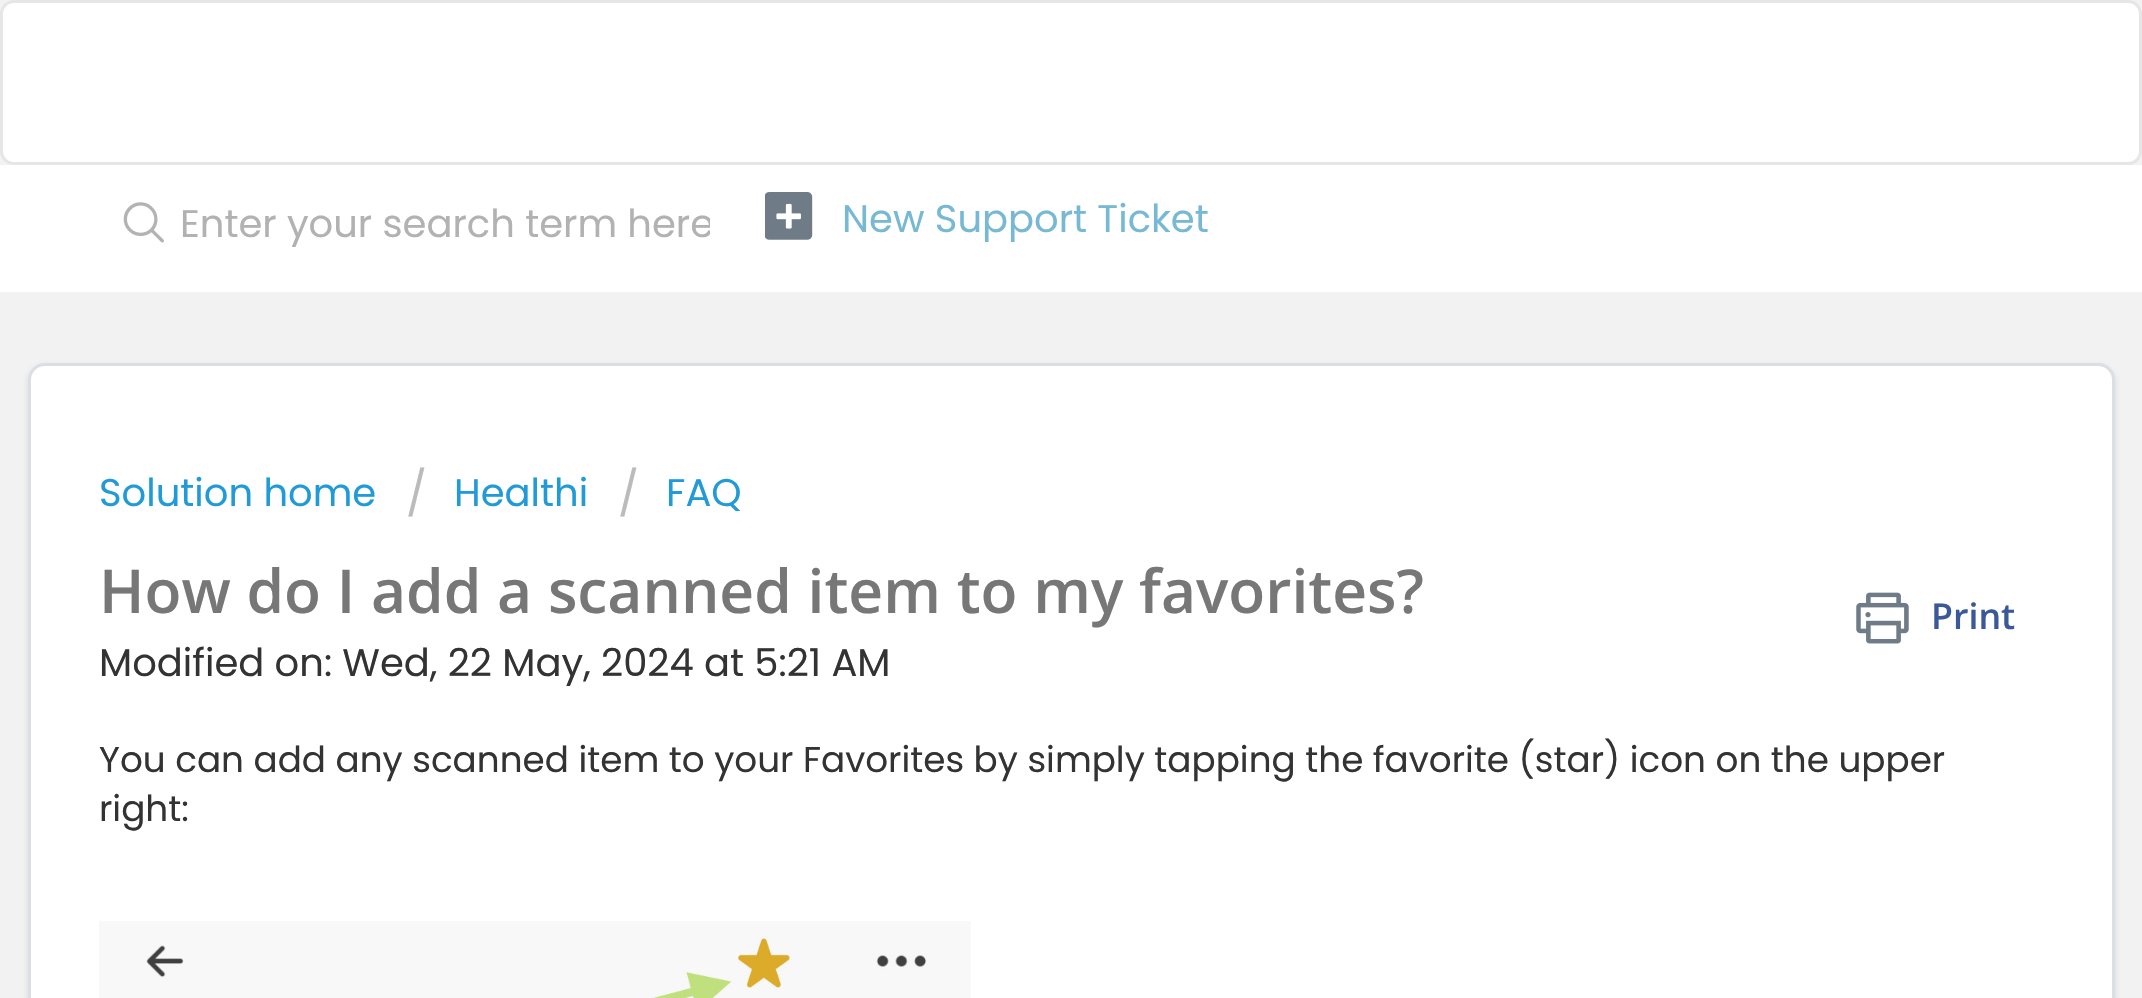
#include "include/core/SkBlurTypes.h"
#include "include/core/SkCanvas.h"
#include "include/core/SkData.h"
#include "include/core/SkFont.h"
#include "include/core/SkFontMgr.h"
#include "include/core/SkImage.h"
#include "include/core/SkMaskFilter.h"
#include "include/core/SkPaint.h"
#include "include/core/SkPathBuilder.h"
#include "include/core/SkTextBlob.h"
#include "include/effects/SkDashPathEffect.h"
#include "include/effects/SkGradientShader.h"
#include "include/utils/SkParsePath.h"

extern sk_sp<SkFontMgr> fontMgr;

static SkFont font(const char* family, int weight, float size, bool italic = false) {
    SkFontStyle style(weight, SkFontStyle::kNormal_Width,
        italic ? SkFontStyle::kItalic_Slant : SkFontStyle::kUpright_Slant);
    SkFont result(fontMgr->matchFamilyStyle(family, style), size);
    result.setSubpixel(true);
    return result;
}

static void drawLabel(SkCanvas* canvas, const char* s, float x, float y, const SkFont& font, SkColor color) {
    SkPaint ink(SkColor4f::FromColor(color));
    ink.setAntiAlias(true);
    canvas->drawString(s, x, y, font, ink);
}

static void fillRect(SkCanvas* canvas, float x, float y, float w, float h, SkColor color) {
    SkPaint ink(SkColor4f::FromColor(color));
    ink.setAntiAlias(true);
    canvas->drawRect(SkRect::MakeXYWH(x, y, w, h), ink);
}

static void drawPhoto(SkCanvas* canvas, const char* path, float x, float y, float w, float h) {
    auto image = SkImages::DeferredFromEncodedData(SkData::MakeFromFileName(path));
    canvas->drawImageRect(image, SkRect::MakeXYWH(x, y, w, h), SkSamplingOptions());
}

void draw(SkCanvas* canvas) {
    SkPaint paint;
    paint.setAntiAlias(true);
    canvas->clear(0xFFF2F2F2);
    paint.setColor(0xFFFFFFFF);
    canvas->drawRoundRect(SkRect::MakeXYWH(1.5f, 1.5f, 2139, 162), 12.5f, 12.5f, paint);
    paint.setStroke(true);
    paint.setStrokeWidth(3);
    paint.setColor(0xFFE6E6E6);
    canvas->drawRoundRect(SkRect::MakeXYWH(1.5f, 1.5f, 2139, 162), 12.5f, 12.5f, paint);
    fillRect(canvas, 0, 165, 2142, 127, 0xFFFFFFFF);
    drawPhoto(canvas, "assets/img1.png", 123, 202, 41, 41);
    canvas->save();
    canvas->clipRect(SkRect::MakeXYWH(182, 195, 528, 58));
    SkFont font1 = font("Poppins", 400, 38.5f);
    drawLabel(canvas, "Enter your search term here", 180, 237, font1, 0xFFB2B2B2);
    canvas->restore();
    drawPhoto(canvas, "assets/img2.png", 765, 192, 48, 48);
    drawLabel(canvas, "New Support Ticket", 842, 232, font1, 0xFF77B8D4);
    paint.setStroke(false);
    paint.setColor(0x263F3F44);
    paint.setMaskFilter(SkMaskFilter::MakeBlur(kNormal_SkBlurStyle, 3));
    canvas->drawRoundRect(SkRect::MakeXYWH(28, 366, 2087, 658), 17, 17, paint);
    paint.setMaskFilter(nullptr);
    paint.setColor(0xFFFFFFFF);
    canvas->drawRoundRect(SkRect::MakeXYWH(29.5f, 364.5f, 2084, 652), 15.5f, 15.5f, paint);
    paint.setStroke(true);
    paint.setColor(0xFFDADFE3);
    canvas->drawRoundRect(SkRect::MakeXYWH(29.5f, 364.5f, 2084, 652), 15.5f, 15.5f, paint);
    drawLabel(canvas, "Solution home", 99, 506, font1, 0xFF219AD8);
    SkFont font2 = font("Poppins", 400, 44);
    drawLabel(canvas, "/", 406, 509, font2, 0xFFBBBBBB);
    drawLabel(canvas, "Healthi", 454, 506, font1, 0xFF219AD8);
    drawLabel(canvas, "/", 618, 509, font2, 0xFFBBBBBB);
    drawLabel(canvas, "FAQ", 666, 506, font1, 0xFF219AD8);
    SkFont font3 = font("Open Sans", 600, 60.5f);
    drawLabel(canvas, "How do I add a scanned item to my favorites?", 99, 613, font3, 0xFF777777);
    drawPhoto(canvas, "assets/img3.png", 1856, 592, 53, 52);
    SkFont font4 = font("Open Sans", 600, 35.75f);
    drawLabel(canvas, "Print", 1931, 629, font4, 0xFF3B5998);
    drawLabel(canvas, "Modified on: Wed, 22 May, 2024 at 5:21 AM", 99, 676, font1, 0xFF333333);
    SkFont font5 = font("Poppins", 400, 35.75f);
    drawLabel(canvas, "You can add any scanned item to your Favorites by simply tapping the favorite (star) icon on the upper", 99, 772, font5, 0xFF333333);
    drawLabel(canvas, "right:", 99, 821, font5, 0xFF333333);
    drawPhoto(canvas, "assets/img4.png", 99, 921, 872, 77);
}
